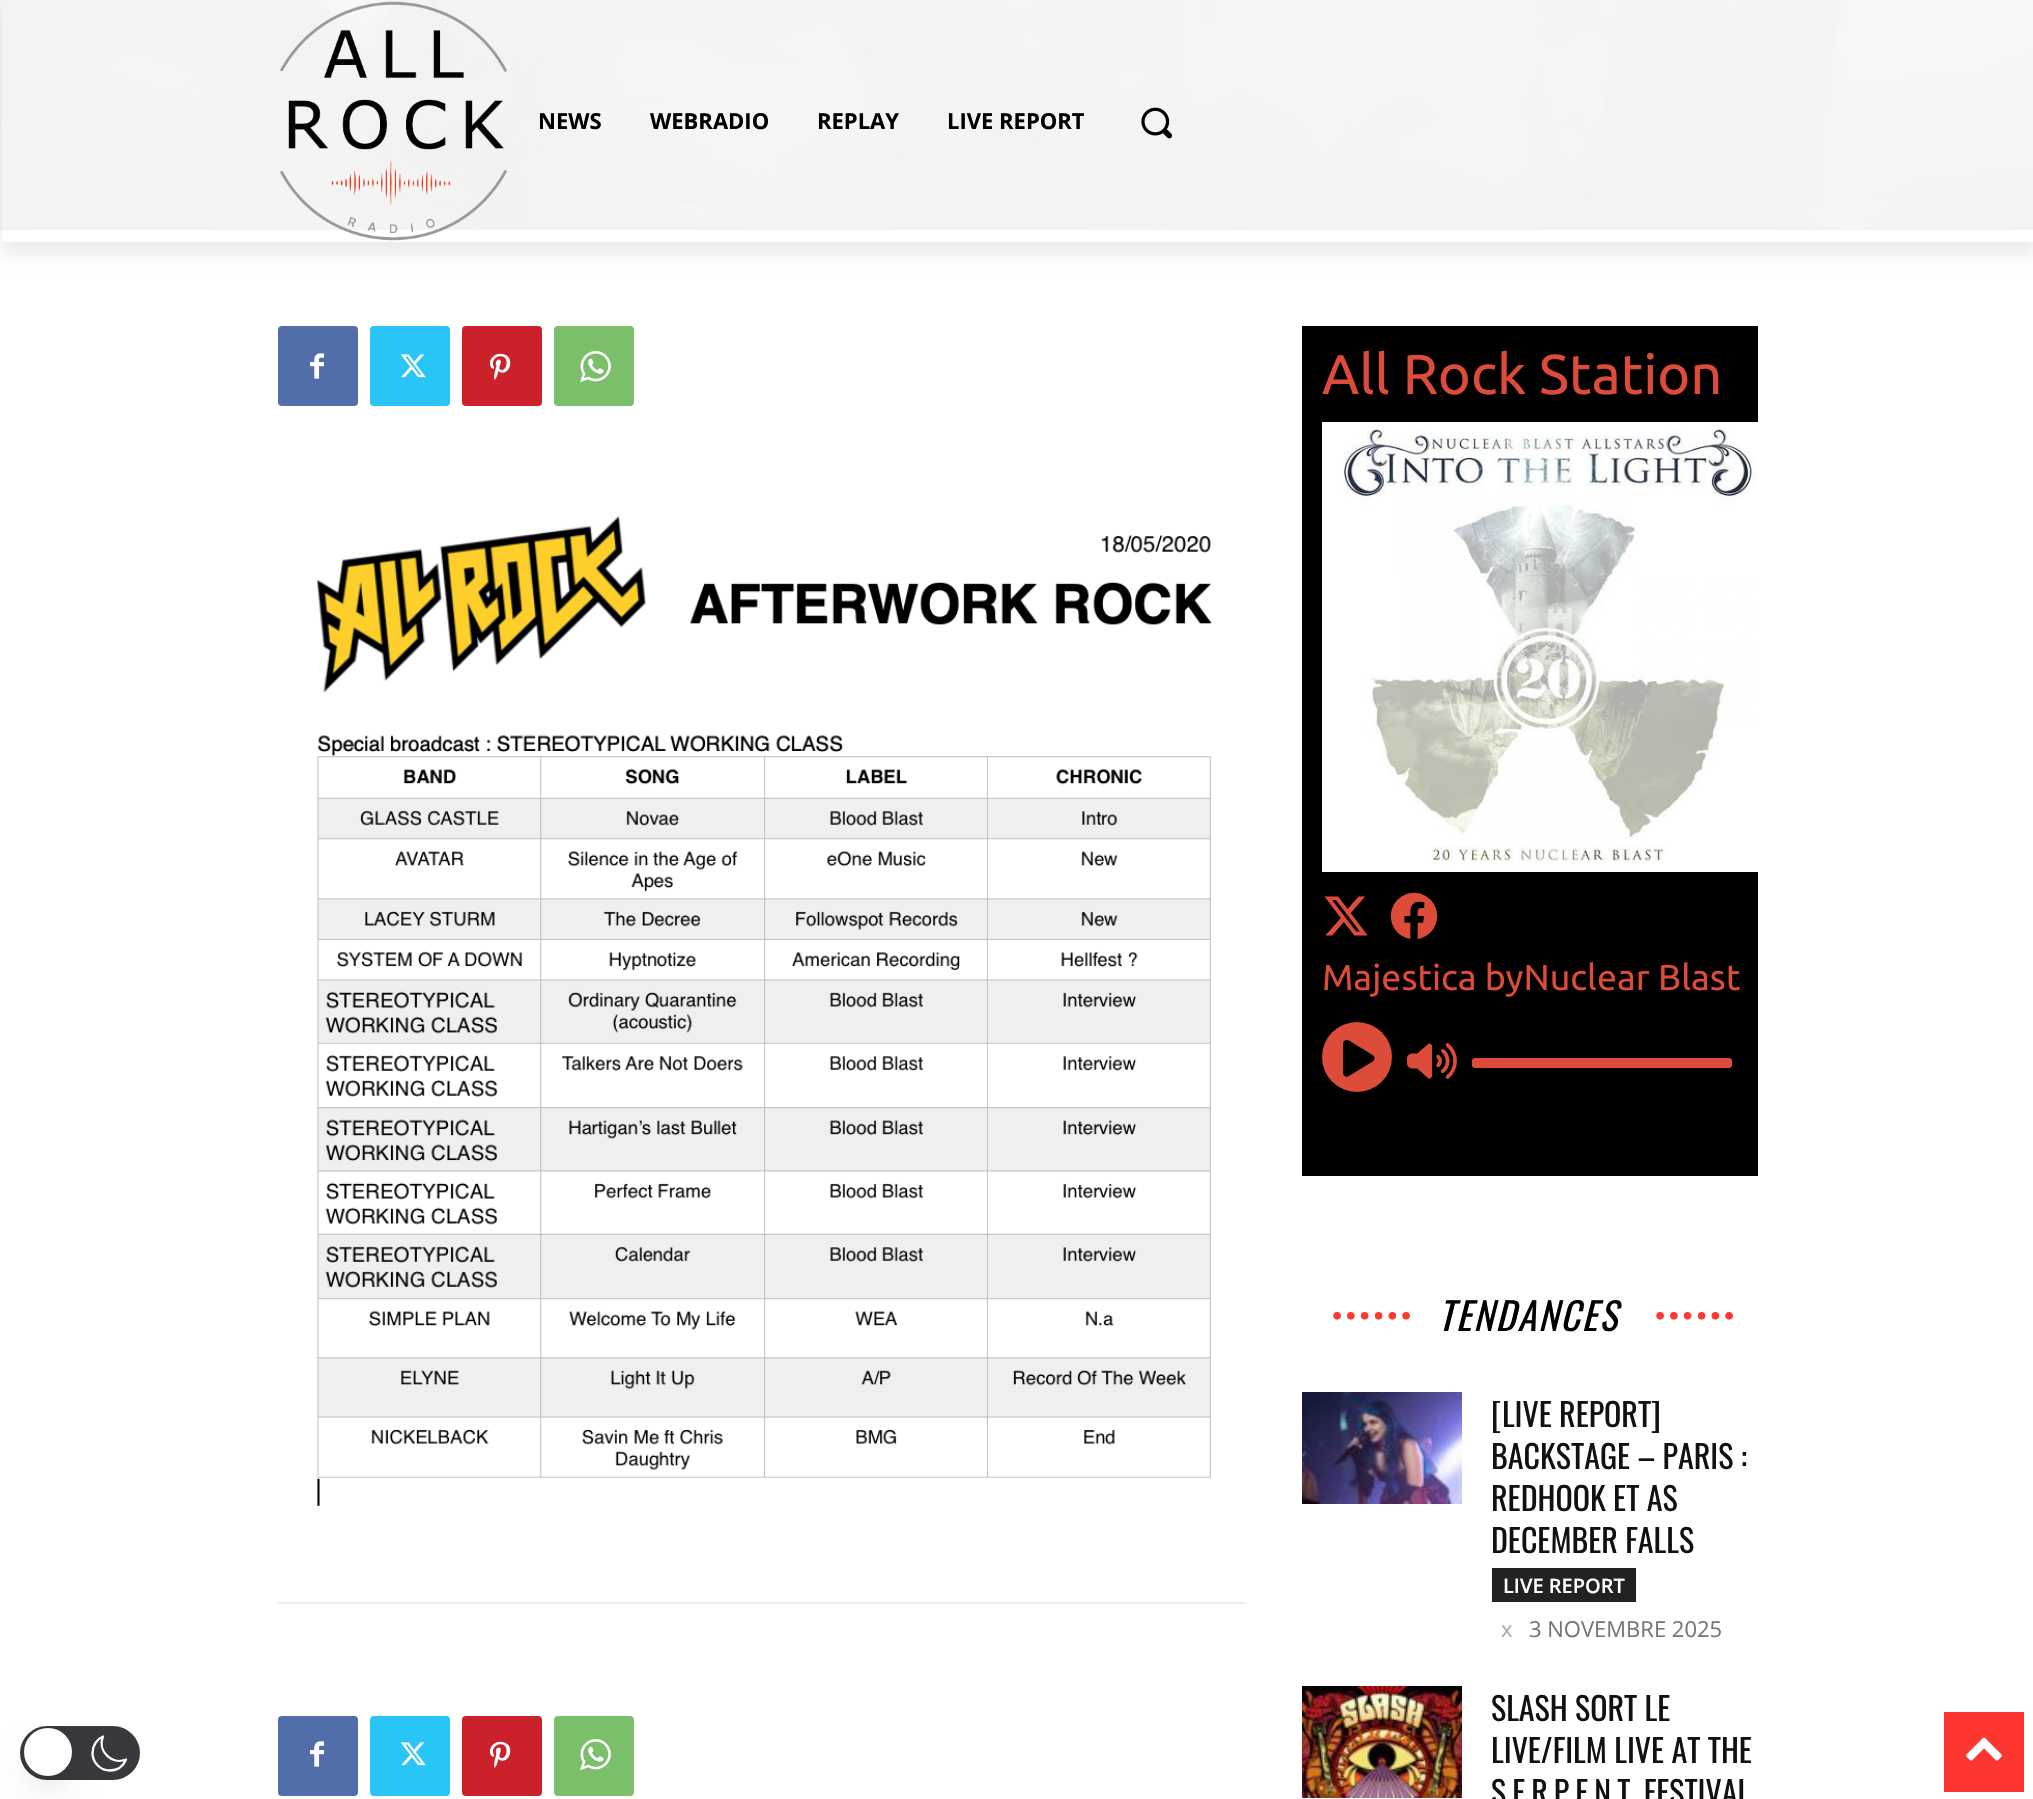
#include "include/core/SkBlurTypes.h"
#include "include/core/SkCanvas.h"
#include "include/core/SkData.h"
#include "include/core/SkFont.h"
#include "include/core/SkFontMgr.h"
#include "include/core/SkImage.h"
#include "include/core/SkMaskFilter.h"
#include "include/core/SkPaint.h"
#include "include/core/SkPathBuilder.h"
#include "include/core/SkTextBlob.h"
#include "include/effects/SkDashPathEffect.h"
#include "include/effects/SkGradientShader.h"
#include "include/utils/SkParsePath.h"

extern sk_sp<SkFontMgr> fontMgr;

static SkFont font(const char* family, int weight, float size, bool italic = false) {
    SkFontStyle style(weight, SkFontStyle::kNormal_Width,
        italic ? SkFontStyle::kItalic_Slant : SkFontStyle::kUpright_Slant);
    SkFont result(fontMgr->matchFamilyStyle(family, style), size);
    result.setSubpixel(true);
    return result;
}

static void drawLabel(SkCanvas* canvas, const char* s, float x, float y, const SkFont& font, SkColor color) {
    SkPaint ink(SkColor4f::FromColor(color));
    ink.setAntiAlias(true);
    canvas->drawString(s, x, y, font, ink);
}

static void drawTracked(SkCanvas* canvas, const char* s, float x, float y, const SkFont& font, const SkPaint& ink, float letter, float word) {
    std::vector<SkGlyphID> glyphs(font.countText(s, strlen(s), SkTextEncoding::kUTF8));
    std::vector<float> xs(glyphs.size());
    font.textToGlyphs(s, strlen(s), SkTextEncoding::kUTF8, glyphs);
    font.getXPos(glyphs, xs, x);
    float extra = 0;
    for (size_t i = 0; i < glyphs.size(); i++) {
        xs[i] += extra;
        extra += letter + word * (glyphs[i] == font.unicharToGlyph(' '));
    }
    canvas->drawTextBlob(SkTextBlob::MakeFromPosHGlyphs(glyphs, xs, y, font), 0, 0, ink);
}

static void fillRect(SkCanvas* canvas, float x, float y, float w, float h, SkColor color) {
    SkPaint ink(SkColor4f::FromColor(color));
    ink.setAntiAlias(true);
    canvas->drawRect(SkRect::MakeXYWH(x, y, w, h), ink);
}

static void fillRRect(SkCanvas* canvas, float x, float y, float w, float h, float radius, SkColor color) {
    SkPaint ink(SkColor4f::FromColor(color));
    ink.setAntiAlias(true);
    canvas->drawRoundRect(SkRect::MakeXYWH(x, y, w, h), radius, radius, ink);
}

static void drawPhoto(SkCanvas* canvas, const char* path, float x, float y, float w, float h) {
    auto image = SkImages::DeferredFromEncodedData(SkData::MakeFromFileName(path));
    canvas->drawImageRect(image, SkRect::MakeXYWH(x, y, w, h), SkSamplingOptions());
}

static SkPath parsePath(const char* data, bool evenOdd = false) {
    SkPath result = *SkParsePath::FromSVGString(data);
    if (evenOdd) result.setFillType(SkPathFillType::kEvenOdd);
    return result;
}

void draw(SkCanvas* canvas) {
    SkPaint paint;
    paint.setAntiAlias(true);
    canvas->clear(0xFFFFFFFF);
    fillRRect(canvas, 20, 1726, 120, 54, 27, 0xFF39393D);
    paint.setStroke(true);
    paint.setStrokeWidth(2.3f);
    paint.setStrokeCap(SkPaint::kRound_Cap);
    paint.setStrokeJoin(SkPaint::kRound_Join);
    paint.setColor(0xFFFFFFFF);
    canvas->drawPath(parsePath("M126 1759.5C112 1765.5 97 1751 103 1736.5C97 1739 92.5 1745.5 92.5 1753C92.5 1762.5 100 1770.5 110 1770.5C117.5 1770.5 123.5 1766 126 1759.5Z"), paint);
    paint.setStroke(false);
    paint.setColor(0x1A000000);
    paint.setMaskFilter(SkMaskFilter::MakeBlur(kNormal_SkBlurStyle, 15));
    canvas->drawRoundRect(SkRect::MakeXYWH(30, 1754, 36, 36), 18, 18, paint);
    paint.setMaskFilter(nullptr);
    paint.setColor(0xFFFFFFFF);
    canvas->drawCircle(48, 1752, 24, paint);
    drawPhoto(canvas, "assets/img3.png", 0, 0, 2033, 230);
    drawPhoto(canvas, "assets/img1.png", 280, 1, 227, 240);
    drawPhoto(canvas, "assets/img4.png", 682, 203, 24, 18);
    canvas->save();
    canvas->clipPath(parsePath("M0 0H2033V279H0ZM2 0H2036V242H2Z", true), true);
    paint.setColor(0x14000000);
    paint.setMaskFilter(SkMaskFilter::MakeBlur(kNormal_SkBlurStyle, 8));
    canvas->drawRect(SkRect::MakeXYWH(2, 12, 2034, 242), paint);
    paint.setMaskFilter(nullptr);
    canvas->restore();
    SkFont font1 = font("Open Sans", 700, 22);
    drawLabel(canvas, "NEWS", 538, 129, font1, 0xFF000000);
    drawLabel(canvas, "WEBRADIO", 650, 129, font1, 0xFF000000);
    drawLabel(canvas, "REPLAY", 817, 129, font1, 0xFF000000);
    drawLabel(canvas, "LIVE REPORT", 947, 129, font1, 0xFF000000);
    drawPhoto(canvas, "assets/img2.png", 1141, 107, 32, 32);
    fillRRect(canvas, 278, 326, 80, 80, 4, 0xFF516EAB);
    drawPhoto(canvas, "assets/img5.png", 310, 353, 14, 26);
    fillRRect(canvas, 370, 326, 80, 80, 4, 0xFF29C5F6);
    drawPhoto(canvas, "assets/img6.png", 400, 354, 26, 24);
    fillRRect(canvas, 462, 326, 80, 80, 4, 0xFFCA212A);
    drawPhoto(canvas, "assets/img7.png", 490, 353, 21, 27);
    fillRRect(canvas, 554, 326, 80, 80, 4, 0xFF7BBF6A);
    drawPhoto(canvas, "assets/img8.png", 580, 351, 31, 31);
    drawPhoto(canvas, "assets/img9.png", 317, 516, 895, 990);
    fillRect(canvas, 278, 1602, 968, 2, 0xFFEDEDED);
    fillRRect(canvas, 278, 1716, 80, 80, 4, 0xFF516EAB);
    drawPhoto(canvas, "assets/img5.png", 310, 1741, 14, 26);
    fillRRect(canvas, 370, 1716, 80, 80, 4, 0xFF29C5F6);
    drawPhoto(canvas, "assets/img6.png", 400, 1742, 26, 24);
    fillRRect(canvas, 462, 1716, 80, 80, 4, 0xFFCA212A);
    drawPhoto(canvas, "assets/img7.png", 490, 1741, 21, 27);
    fillRRect(canvas, 554, 1716, 80, 80, 4, 0xFF7BBF6A);
    drawPhoto(canvas, "assets/img8.png", 580, 1739, 31, 31);
    drawPhoto(canvas, "assets/img10.png", 1302, 326, 456, 850);
    SkFont font2 = font("Liberation Sans", 400, 28, true);
    paint.setColor(0xFFFF3530);
    drawTracked(canvas, "••••••", 1332, 1325, font2, paint, 4, 0);
    SkFont font3 = font("Oswald", 400, 38, true);
    paint.setColor(0xFF000000);
    drawTracked(canvas, "TENDANCES", 1438, 1331, font3, paint, 2, 0);
    paint.setColor(0xFFFF3530);
    drawTracked(canvas, "••••••", 1655, 1325, font2, paint, 4, 0);
    drawPhoto(canvas, "assets/img11.png", 1302, 1392, 160, 112);
    SkFont font4 = font("Oswald", 400, 32);
    drawLabel(canvas, "[LIVE REPORT]", 1491, 1427, font4, 0xFF111111);
    drawLabel(canvas, "BACKSTAGE – PARIS :", 1491, 1469, font4, 0xFF111111);
    drawLabel(canvas, "REDHOOK ET AS", 1491, 1511, font4, 0xFF111111);
    drawLabel(canvas, "DECEMBER FALLS", 1491, 1553, font4, 0xFF111111);
    fillRect(canvas, 1492, 1568, 144, 34, 0xFF222222);
    SkFont font5 = font("Open Sans", 600, 20);
    drawLabel(canvas, "LIVE REPORT", 1503, 1593, font5, 0xFFFFFFFF);
    SkFont font6 = font("Open Sans", 400, 22);
    drawLabel(canvas, "x", 1501, 1637, font6, 0xFFAAAAAA);
    drawLabel(canvas, "3 NOVEMBRE 2025", 1529, 1637, font6, 0xFF767676);
    drawPhoto(canvas, "assets/img12.png", 1302, 1686, 160, 112);
    drawLabel(canvas, "SLASH SORT LE", 1491, 1721, font4, 0xFF111111);
    drawLabel(canvas, "LIVE/FILM LIVE AT THE", 1491, 1763, font4, 0xFF111111);
    drawLabel(canvas, "S.E.R.P.E.N.T. FESTIVAL", 1491, 1805, font4, 0xFF111111);
    fillRect(canvas, 1944, 1712, 80, 80, 0xFFFF3530);
    drawPhoto(canvas, "assets/img13.png", 1966, 1737, 36, 24);
}
